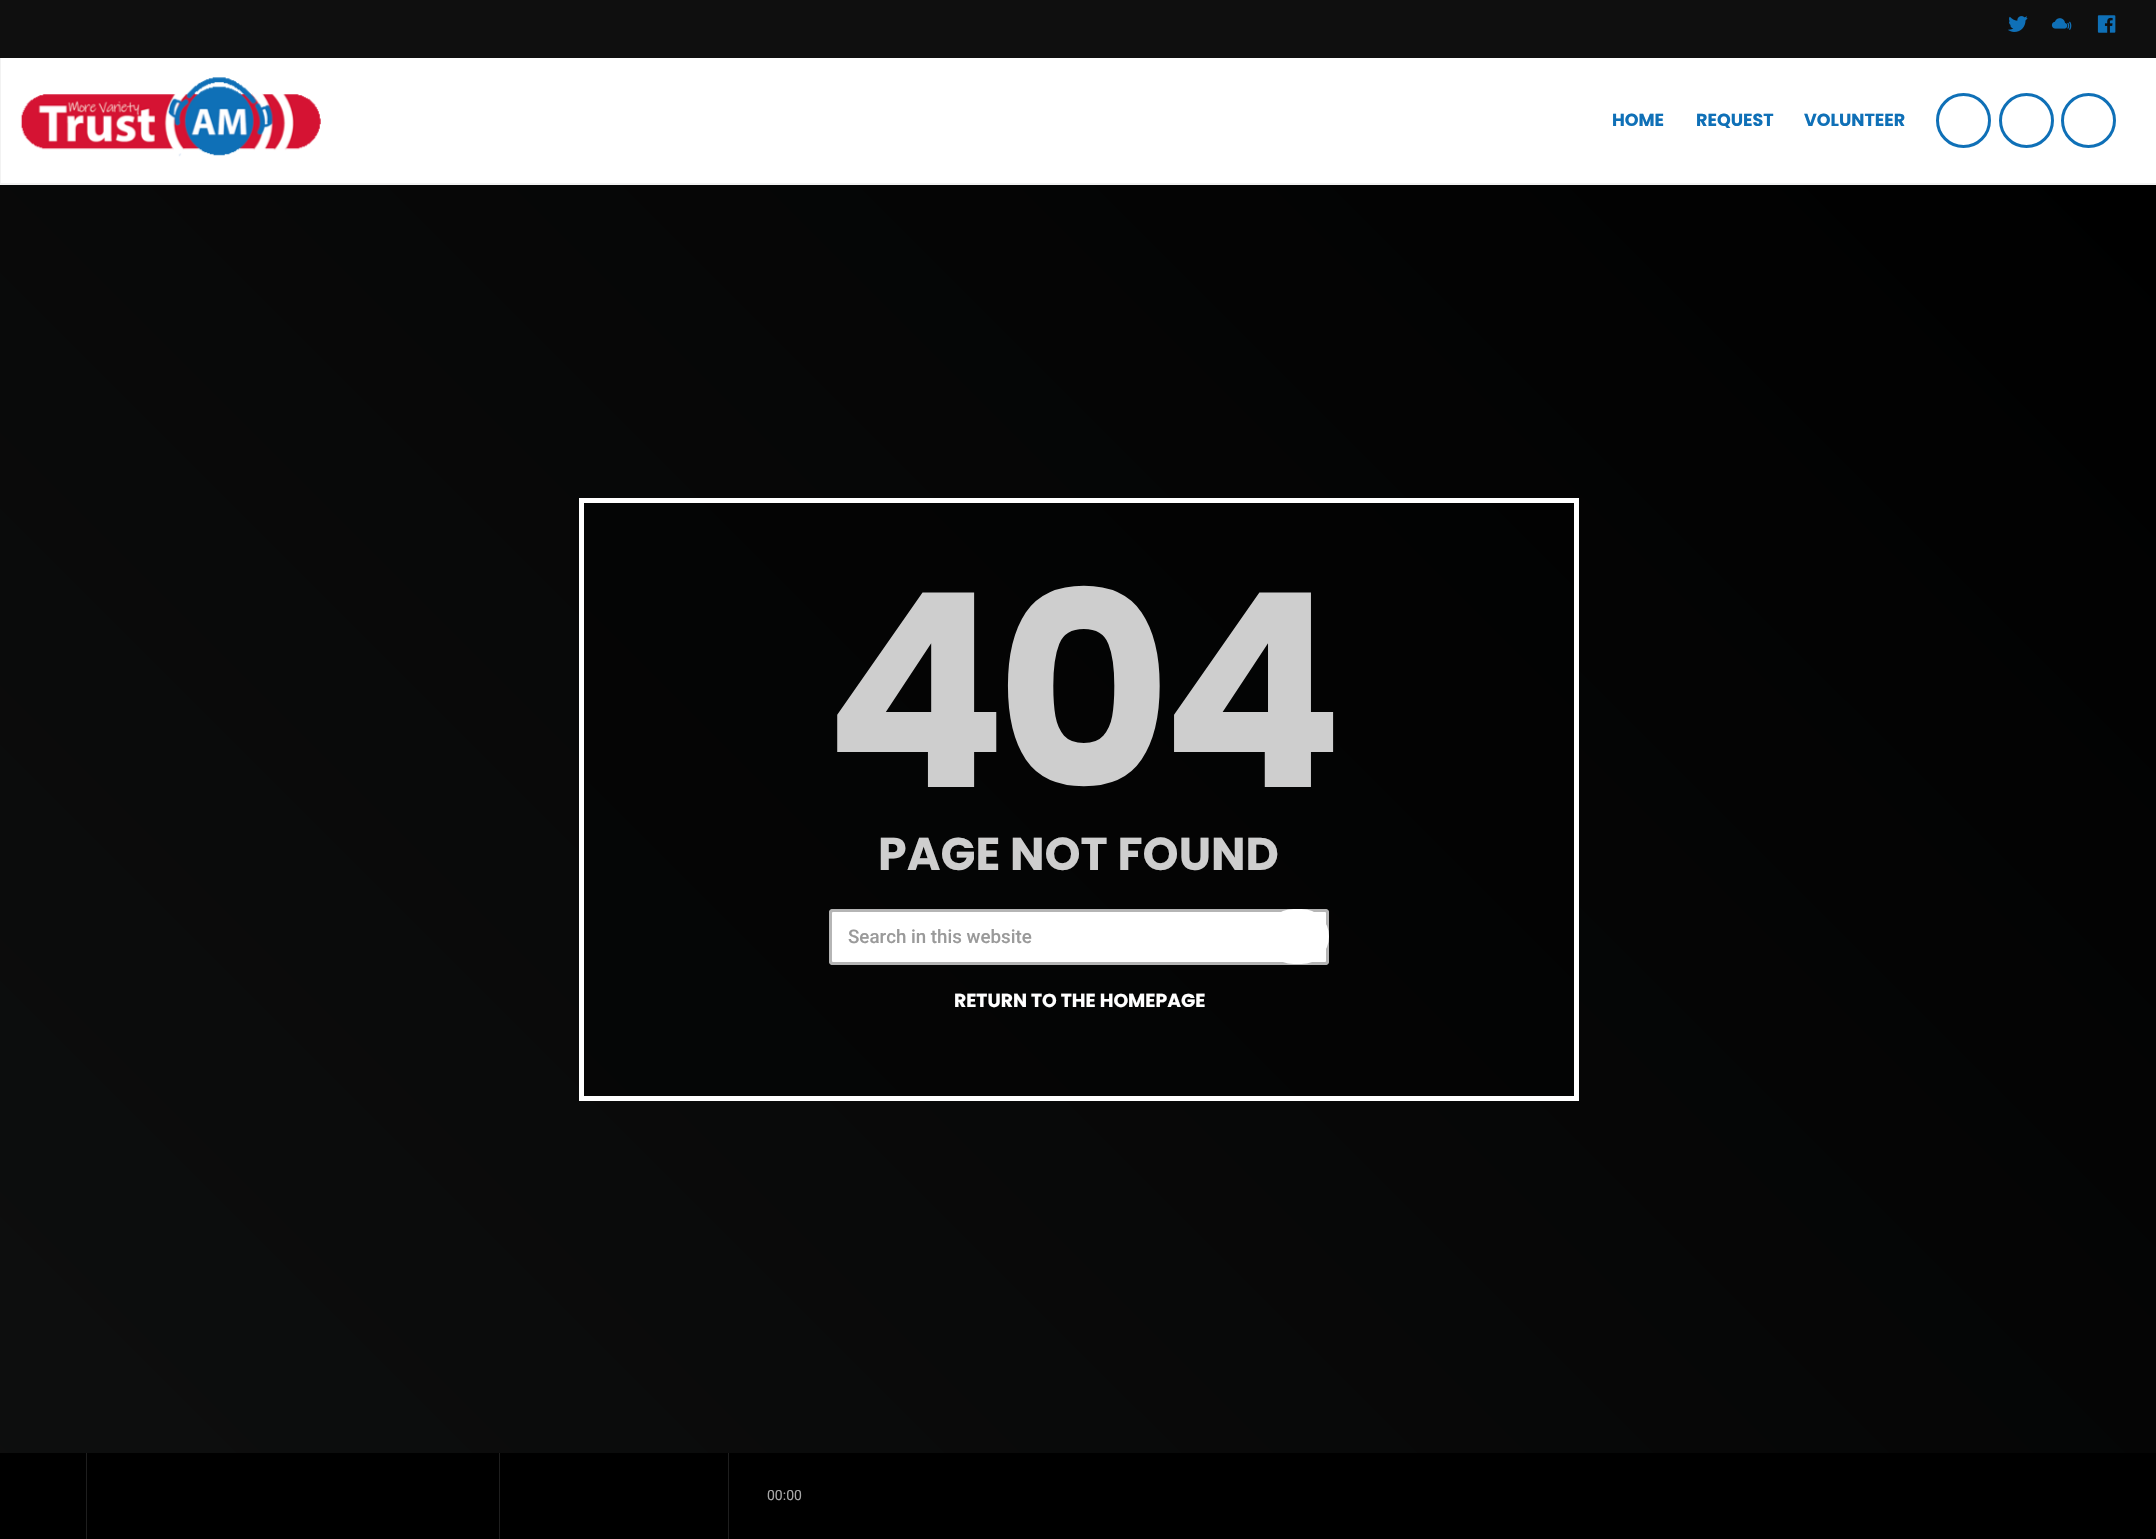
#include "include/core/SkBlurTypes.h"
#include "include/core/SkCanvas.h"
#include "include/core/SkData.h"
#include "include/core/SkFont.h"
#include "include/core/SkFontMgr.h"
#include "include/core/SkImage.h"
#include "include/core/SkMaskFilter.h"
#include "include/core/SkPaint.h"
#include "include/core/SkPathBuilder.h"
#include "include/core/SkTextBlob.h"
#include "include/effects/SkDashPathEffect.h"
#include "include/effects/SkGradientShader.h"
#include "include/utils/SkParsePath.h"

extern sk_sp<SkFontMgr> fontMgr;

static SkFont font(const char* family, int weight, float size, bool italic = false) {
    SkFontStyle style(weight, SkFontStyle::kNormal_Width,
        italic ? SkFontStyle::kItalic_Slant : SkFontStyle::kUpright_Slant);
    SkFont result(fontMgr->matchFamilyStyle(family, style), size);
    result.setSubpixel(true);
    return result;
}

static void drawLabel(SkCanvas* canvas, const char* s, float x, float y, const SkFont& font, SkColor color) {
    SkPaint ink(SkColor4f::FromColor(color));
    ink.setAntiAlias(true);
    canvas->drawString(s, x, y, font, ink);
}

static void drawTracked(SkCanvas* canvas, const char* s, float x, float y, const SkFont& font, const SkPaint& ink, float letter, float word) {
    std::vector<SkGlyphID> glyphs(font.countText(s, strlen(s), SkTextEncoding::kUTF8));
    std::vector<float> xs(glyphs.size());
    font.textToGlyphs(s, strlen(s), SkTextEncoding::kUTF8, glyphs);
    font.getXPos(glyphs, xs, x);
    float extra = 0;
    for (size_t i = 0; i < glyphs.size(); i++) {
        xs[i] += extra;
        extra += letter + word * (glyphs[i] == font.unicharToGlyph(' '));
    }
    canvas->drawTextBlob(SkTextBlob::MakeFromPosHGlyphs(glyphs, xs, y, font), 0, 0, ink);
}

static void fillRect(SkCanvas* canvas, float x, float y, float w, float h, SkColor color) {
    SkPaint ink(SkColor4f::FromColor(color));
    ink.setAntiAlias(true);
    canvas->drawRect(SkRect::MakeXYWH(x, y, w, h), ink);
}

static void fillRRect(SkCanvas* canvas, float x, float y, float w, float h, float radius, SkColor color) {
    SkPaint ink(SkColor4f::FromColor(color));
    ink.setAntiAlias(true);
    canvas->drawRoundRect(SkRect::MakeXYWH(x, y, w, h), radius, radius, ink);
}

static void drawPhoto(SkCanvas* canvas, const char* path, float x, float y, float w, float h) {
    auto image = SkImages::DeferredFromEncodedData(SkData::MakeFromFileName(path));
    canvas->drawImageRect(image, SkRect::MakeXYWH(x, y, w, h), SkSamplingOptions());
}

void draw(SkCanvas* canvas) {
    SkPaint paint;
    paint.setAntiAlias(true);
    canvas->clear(0xFFF2F2F2);
    fillRect(canvas, 1, 58, 2155, 125, 0xFFFFFFFF);
    fillRect(canvas, 0, 0, 2156, 58, 0xFF0F0F0F);
    drawPhoto(canvas, "assets/img1.png", 2008, 16, 20, 16);
    drawPhoto(canvas, "assets/img2.png", 2051, 18, 21, 12);
    drawPhoto(canvas, "assets/img3.png", 2097, 15, 19, 18);
    drawPhoto(canvas, "assets/img4.png", 20, 77, 301, 80);
    SkFont font1 = font("Poppins", 700, 17.5f);
    drawLabel(canvas, "HOME", 1612, 126, font1, 0xFF0F70B7);
    drawLabel(canvas, "REQUEST", 1696, 126, font1, 0xFF0F70B7);
    drawLabel(canvas, "VOLUNTEER", 1804, 126, font1, 0xFF0F70B7);
    paint.setStroke(true);
    paint.setStrokeWidth(3);
    paint.setColor(0xFF0F70B7);
    canvas->drawCircle(1963.5f, 120.5f, 26, paint);
    canvas->drawCircle(2026.5f, 120.5f, 26, paint);
    canvas->drawCircle(2088.5f, 120.5f, 26, paint);
    paint.setStroke(false);
    {
        const SkColor colors[] = {0xFF0E0F0F, 0xFF000000};
        const float stops[] = {0, 1};
        const SkPoint ends[] = {{193, 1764}, {1964, -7.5f}};
        paint.setShader(SkGradientShader::MakeLinear(ends, colors, stops, 2, SkTileMode::kClamp));
        paint.setAlpha(255);
    }
    canvas->drawRect(SkRect::MakeXYWH(0, 185, 2156, 1268), paint);
    {
        const SkColor colors[] = {0xFF080909, 0xFF000000};
        const float stops[] = {0, 1};
        const SkPoint ends[] = {{193, 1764}, {1964, -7.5f}};
        paint.setShader(SkGradientShader::MakeLinear(ends, colors, stops, 2, SkTileMode::kClamp));
        paint.setAlpha(255);
    }
    canvas->drawRect(SkRect::MakeXYWH(584, 503, 990, 593), paint);
    paint.setStroke(true);
    paint.setStrokeWidth(5);
    paint.setShader(nullptr);
    paint.setColor(0xFFFFFFFF);
    canvas->drawRect(SkRect::MakeXYWH(581.5f, 500.5f, 995, 598), paint);
    SkFont font2 = font("Poppins", 700, 270);
    paint.setStroke(false);
    paint.setColor(0xFFCECECE);
    drawTracked(canvas, "404", 824, 787, font2, paint, -11, 0);
    SkFont font3 = font("Poppins", 700, 45.9f);
    drawLabel(canvas, "PAGE NOT FOUND", 878, 870, font3, 0xFFCECECE);
    fillRRect(canvas, 829, 909, 500, 56, 4, 0xFFFFFFFF);
    paint.setStroke(true);
    paint.setStrokeWidth(3);
    paint.setColor(0xB3969696);
    canvas->drawRoundRect(SkRect::MakeXYWH(830.5f, 910.5f, 497, 53), 2.5f, 2.5f, paint);
    SkFont font4 = font("Roboto", 500, 18.75f);
    drawLabel(canvas, "Search in this website", 848, 943, font4, 0xFF9A9A9A);
    paint.setColor(0xFFFFFFFF);
    canvas->drawRoundRect(SkRect::MakeXYWH(1267.5f, 910.5f, 60, 52), 26, 26, paint);
    SkFont font5 = font("Poppins", 700, 18.75f);
    drawLabel(canvas, "RETURN TO THE HOMEPAGE", 954, 1007, font5, 0xFFFFFFFF);
    fillRect(canvas, 0, 1453, 2156, 86, 0xFF000000);
    fillRect(canvas, 499, 1453, 1, 86, 0xFF1E1E1E);
    fillRect(canvas, 86, 1453, 1, 86, 0xFF1E1E1E);
    fillRect(canvas, 728, 1453, 1, 86, 0xFF1E1E1E);
    SkFont font6 = font("Roboto", 400, 14);
    drawLabel(canvas, "00:00", 767, 1500, font6, 0xFFA6A6A6);
}
